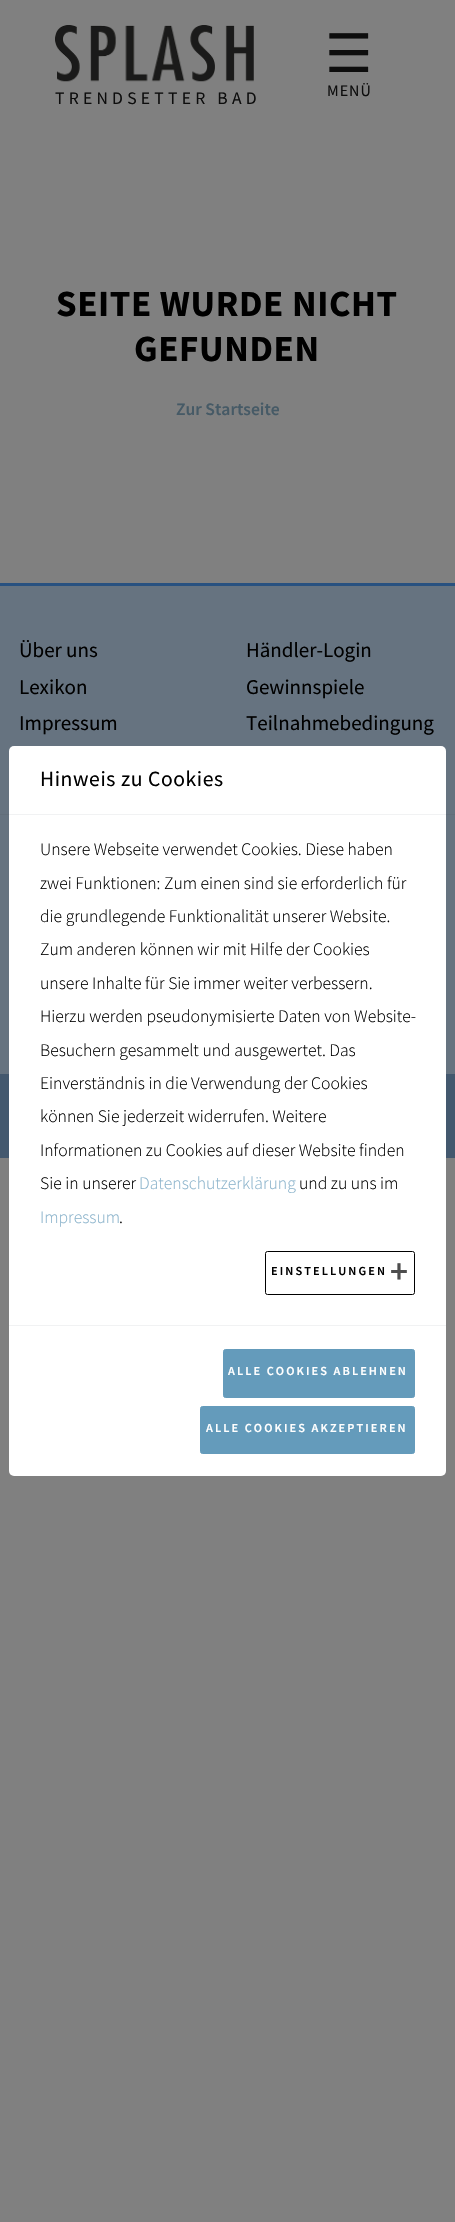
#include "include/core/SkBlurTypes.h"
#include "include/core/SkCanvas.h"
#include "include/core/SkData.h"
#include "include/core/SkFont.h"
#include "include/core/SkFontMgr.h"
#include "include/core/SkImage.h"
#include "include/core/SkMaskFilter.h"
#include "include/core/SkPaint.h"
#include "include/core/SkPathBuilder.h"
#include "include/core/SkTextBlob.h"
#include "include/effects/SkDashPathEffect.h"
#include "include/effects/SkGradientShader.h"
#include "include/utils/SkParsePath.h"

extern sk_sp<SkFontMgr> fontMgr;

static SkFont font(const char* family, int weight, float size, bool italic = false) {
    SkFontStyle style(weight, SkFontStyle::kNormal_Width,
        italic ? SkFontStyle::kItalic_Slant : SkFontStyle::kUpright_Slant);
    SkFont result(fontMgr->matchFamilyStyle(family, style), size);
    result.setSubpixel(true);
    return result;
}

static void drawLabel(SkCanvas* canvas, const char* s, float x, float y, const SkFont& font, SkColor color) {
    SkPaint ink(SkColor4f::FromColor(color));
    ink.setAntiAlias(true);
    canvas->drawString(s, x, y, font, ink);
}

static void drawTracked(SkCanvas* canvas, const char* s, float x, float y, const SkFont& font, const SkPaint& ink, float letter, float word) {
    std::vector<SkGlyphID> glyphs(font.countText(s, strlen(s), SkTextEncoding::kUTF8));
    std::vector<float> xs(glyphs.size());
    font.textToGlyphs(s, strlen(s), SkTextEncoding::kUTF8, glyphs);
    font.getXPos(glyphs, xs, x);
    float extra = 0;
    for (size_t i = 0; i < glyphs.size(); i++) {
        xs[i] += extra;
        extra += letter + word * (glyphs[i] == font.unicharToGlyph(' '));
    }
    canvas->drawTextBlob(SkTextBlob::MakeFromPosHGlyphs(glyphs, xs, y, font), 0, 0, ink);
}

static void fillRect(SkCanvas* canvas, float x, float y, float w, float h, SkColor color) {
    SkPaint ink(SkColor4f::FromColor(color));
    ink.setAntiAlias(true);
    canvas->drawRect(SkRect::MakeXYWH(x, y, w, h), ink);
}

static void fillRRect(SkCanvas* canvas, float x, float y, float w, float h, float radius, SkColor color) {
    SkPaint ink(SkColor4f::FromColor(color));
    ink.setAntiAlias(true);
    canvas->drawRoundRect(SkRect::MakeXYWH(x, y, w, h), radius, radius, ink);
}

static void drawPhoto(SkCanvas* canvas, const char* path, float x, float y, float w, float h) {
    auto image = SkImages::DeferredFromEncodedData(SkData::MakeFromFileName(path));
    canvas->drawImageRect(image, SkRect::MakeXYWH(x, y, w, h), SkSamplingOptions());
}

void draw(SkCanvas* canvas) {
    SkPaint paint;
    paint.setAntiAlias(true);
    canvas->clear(0xFF808080);
    SkFont font1 = font("DejaVu Sans", 400, 53);
    paint.setColor(0xFF0D0D0D);
    drawTracked(canvas, "☰", 325, 72, font1, paint, 1, 0);
    SkFont font2 = font("Source Sans Pro", 400, 16);
    drawTracked(canvas, "MENÜ", 327, 96, font2, paint, 1, 0);
    drawPhoto(canvas, "assets/img1.png", 55, 25, 199, 57);
    SkFont font3 = font("Source Sans Pro", 400, 17.6f);
    drawTracked(canvas, "TRENDSETTER BAD", 55, 104, font3, paint, 4.25f, 0);
    SkFont font4 = font("Source Sans Pro", 700, 37);
    paint.setColor(0xFF000000);
    drawTracked(canvas, "SEITE WURDE NICHT", 56, 316, font4, paint, 0.6f, 0);
    drawTracked(canvas, "GEFUNDEN", 134, 361, font4, paint, 0.6f, 0);
    SkFont font5 = font("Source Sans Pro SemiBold", 600, 17.6f);
    drawLabel(canvas, "Zur Startseite", 176, 415, font5, 0xFF465A66);
    fillRect(canvas, 0, 586, 455, 488, 0xFF667380);
    fillRect(canvas, 0, 583, 455, 3, 0xFF285180);
    SkFont font6 = font("Source Sans Pro", 400, 21);
    drawLabel(canvas, "Über uns", 19, 657, font6, 0xFF000000);
    drawLabel(canvas, "Lexikon", 19, 694, font6, 0xFF000000);
    drawLabel(canvas, "Impressum", 19, 730, font6, 0xFF000000);
    drawLabel(canvas, "Händler-Login", 246, 657, font6, 0xFF000000);
    drawLabel(canvas, "Gewinnspiele", 246, 694, font6, 0xFF000000);
    drawLabel(canvas, "Teilnahmebedingung", 246, 730, font6, 0xFF000000);
    fillRect(canvas, 0, 814, 455, 1, 0xFF626E7A);
    fillRect(canvas, 0, 1074, 455, 84, 0xFF43586E);
    fillRRect(canvas, 9, 746, 437, 730, 5, 0xFFFFFFFF);
    fillRect(canvas, 9, 814, 437, 1, 0xFFF1F2F3);
    SkFont font7 = font("Source Sans Pro", 400, 21.6f);
    drawTracked(canvas, "Hinweis zu Cookies", 40, 786, font7, paint, 0.6f, 0);
    SkFont font8 = font("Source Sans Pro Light", 300, 17.6f);
    drawLabel(canvas, "Unsere Webseite verwendet Cookies. Diese haben", 40, 855, font8, 0xFF000000);
    drawLabel(canvas, "zwei Funktionen: Zum einen sind sie erforderlich für", 40, 889, font8, 0xFF000000);
    drawLabel(canvas, "die grundlegende Funktionalität unserer Website.", 40, 922, font8, 0xFF000000);
    drawLabel(canvas, "Zum anderen können wir mit Hilfe der Cookies", 40, 955, font8, 0xFF000000);
    drawLabel(canvas, "unsere Inhalte für Sie immer weiter verbessern.", 40, 989, font8, 0xFF000000);
    drawLabel(canvas, "Hierzu werden pseudonymisierte Daten von Website-", 40, 1022, font8, 0xFF000000);
    drawLabel(canvas, "Besuchern gesammelt und ausgewertet. Das", 40, 1056, font8, 0xFF000000);
    drawLabel(canvas, "Einverständnis in die Verwendung der Cookies", 40, 1089, font8, 0xFF000000);
    drawLabel(canvas, "können Sie jederzeit widerrufen. Weitere", 40, 1122, font8, 0xFF000000);
    drawLabel(canvas, "Informationen zu Cookies auf dieser Website finden", 40, 1156, font8, 0xFF000000);
    drawLabel(canvas, "Sie in unserer", 40, 1189, font8, 0xFF000000);
    drawLabel(canvas, "Datenschutzerklärung", 139, 1189, font8, 0xFF8CB4CC);
    drawLabel(canvas, "und zu uns im", 299, 1189, font8, 0xFF000000);
    drawLabel(canvas, "Impressum", 40, 1223, font8, 0xFF8CB4CC);
    drawLabel(canvas, ".", 119, 1223, font8, 0xFF000000);
    paint.setStroke(true);
    paint.setStrokeWidth(1);
    canvas->drawRoundRect(SkRect::MakeXYWH(265.5f, 1251.5f, 149, 43), 2, 2, paint);
    SkFont font9 = font("Source Sans Pro SemiBold", 600, 12.25f);
    paint.setStroke(false);
    drawTracked(canvas, "EINSTELLUNGEN", 271, 1275, font9, paint, 2.1f, 0);
    SkFont font10 = font("Source Sans Pro SemiBold", 600, 35);
    paint.setColor(0xFF4D4D4D);
    drawTracked(canvas, "+", 390, 1283, font10, paint, 2.1f, 0);
    fillRect(canvas, 9, 1325, 437, 1, 0xFFF1F2F3);
    paint.setColor(0xFF649BBB);
    canvas->drawRoundRect(SkRect::MakeXYWH(223.5f, 1349.5f, 191, 48), 2, 2, paint);
    paint.setStroke(true);
    canvas->drawRoundRect(SkRect::MakeXYWH(223.5f, 1349.5f, 191, 48), 2, 2, paint);
    paint.setStroke(false);
    paint.setColor(0xFFFFFFFF);
    drawTracked(canvas, "ALLE COOKIES ABLEHNEN", 228, 1375, font9, paint, 2.1f, 0);
    paint.setColor(0xFF649BBB);
    canvas->drawRoundRect(SkRect::MakeXYWH(200.5f, 1406.5f, 214, 47), 2, 2, paint);
    paint.setStroke(true);
    canvas->drawRoundRect(SkRect::MakeXYWH(200.5f, 1406.5f, 214, 47), 2, 2, paint);
    paint.setStroke(false);
    paint.setColor(0xFFFFFFFF);
    drawTracked(canvas, "ALLE COOKIES AKZEPTIEREN", 206, 1432, font9, paint, 2.1f, 0);
}
